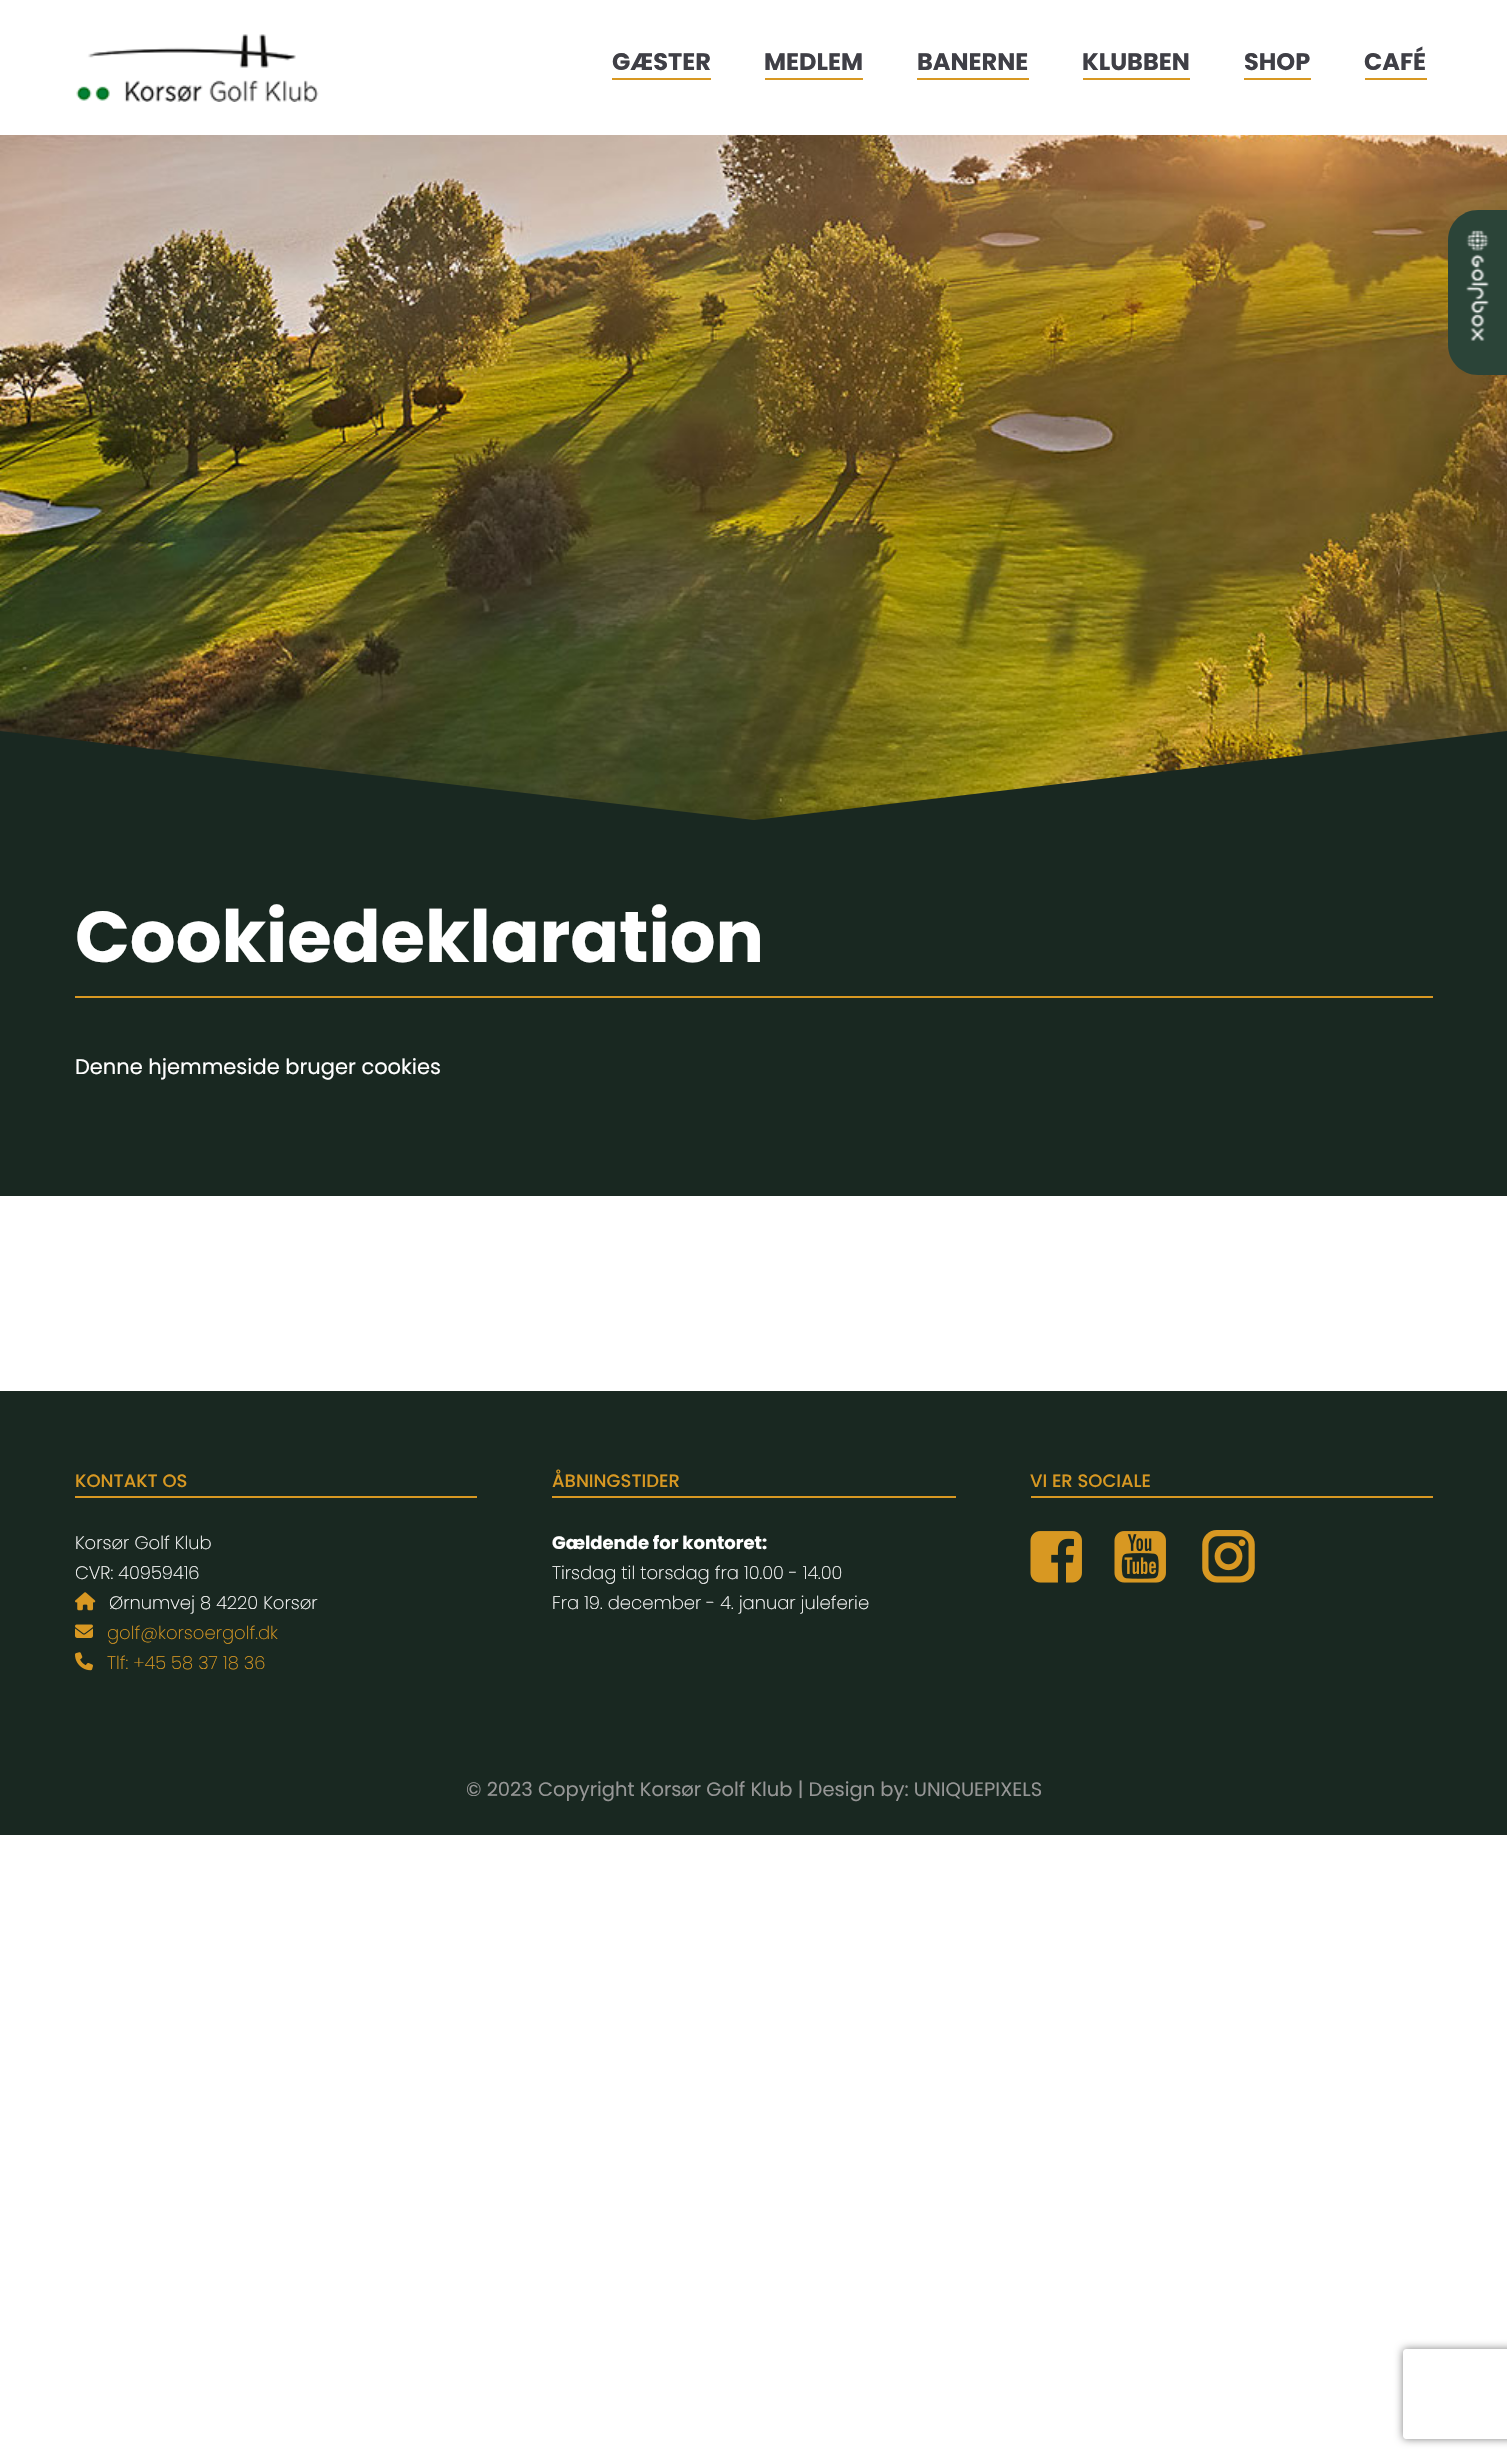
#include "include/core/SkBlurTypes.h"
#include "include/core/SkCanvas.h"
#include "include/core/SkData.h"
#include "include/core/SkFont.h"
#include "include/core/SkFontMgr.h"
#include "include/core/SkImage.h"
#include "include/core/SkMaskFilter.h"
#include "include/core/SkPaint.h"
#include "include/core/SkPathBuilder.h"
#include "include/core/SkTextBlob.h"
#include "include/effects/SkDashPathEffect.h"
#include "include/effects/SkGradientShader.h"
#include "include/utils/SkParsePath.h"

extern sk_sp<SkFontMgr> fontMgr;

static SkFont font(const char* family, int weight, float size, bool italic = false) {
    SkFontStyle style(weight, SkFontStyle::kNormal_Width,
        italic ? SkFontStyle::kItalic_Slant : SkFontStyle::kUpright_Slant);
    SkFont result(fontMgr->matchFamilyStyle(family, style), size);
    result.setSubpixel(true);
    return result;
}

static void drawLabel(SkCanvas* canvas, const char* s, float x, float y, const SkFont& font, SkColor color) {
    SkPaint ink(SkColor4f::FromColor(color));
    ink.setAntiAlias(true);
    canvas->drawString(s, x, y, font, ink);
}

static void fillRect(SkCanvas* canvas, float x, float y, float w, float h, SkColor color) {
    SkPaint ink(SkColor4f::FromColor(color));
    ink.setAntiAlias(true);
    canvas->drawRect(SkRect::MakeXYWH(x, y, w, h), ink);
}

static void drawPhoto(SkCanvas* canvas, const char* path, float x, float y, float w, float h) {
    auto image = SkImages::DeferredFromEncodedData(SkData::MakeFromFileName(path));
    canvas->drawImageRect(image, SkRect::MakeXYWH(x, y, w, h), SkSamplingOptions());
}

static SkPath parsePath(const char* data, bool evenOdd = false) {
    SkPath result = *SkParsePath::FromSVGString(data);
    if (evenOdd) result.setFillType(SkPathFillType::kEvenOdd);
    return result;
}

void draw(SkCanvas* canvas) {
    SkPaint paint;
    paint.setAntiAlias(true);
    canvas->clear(0xFFFFFFFF);
    drawPhoto(canvas, "assets/img1.png", 76, 34, 243, 68);
    fillRect(canvas, 612, 78, 99, 2, 0xFFD89822);
    SkFont font1 = font("Poppins", 700, 24);
    drawLabel(canvas, "GÆSTER", 612, 70, font1, 0xFF3F3F46);
    fillRect(canvas, 765, 78, 98, 2, 0xFFD89822);
    drawLabel(canvas, "MEDLEM", 764, 70, font1, 0xFF3F3F46);
    fillRect(canvas, 917, 78, 112, 2, 0xFFD89822);
    drawLabel(canvas, "BANERNE", 917, 70, font1, 0xFF3F3F46);
    fillRect(canvas, 1083, 78, 107, 2, 0xFFD89822);
    drawLabel(canvas, "KLUBBEN", 1082, 70, font1, 0xFF3F3F46);
    fillRect(canvas, 1244, 78, 67, 2, 0xFFD89822);
    drawLabel(canvas, "SHOP", 1244, 70, font1, 0xFF3F3F46);
    fillRect(canvas, 1365, 78, 62, 2, 0xFFD89822);
    drawLabel(canvas, "CAFÉ", 1364, 70, font1, 0xFF3F3F46);
    drawPhoto(canvas, "assets/img2.png", 0, 135, 1507, 685);
    paint.setColor(0xFF192821);
    canvas->drawPath(parsePath("M0 731H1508ZM0 910H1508V821H0ZM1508 731V821H0V731L754 820Z"), paint);
    fillRect(canvas, 0, 910, 1507, 286, 0xFF192821);
    fillRect(canvas, 75, 996, 1358, 2, 0xFFD89822);
    SkFont font2 = font("Poppins", 700, 72);
    drawLabel(canvas, "Cookiedeklaration", 75, 962, font2, 0xFFFFFFFF);
    SkFont font3 = font("Poppins", 400, 21);
    drawLabel(canvas, "Denne hjemmeside bruger cookies", 75, 1074, font3, 0xFFFFFFFF);
    fillRect(canvas, 0, 1391, 1507, 444, 0xFF192821);
    fillRect(canvas, 75, 1496, 402, 2, 0xFFD89822);
    SkFont font4 = font("Poppins", 500, 18);
    drawLabel(canvas, "KONTAKT OS", 75, 1487, font4, 0xFFD89822);
    SkFont font5 = font("Poppins", 200, 18);
    drawLabel(canvas, "Korsør Golf Klub", 75, 1549, font5, 0xFFFFFFFF);
    drawLabel(canvas, "CVR: 40959416", 75, 1579, font5, 0xFFFFFFFF);
    drawPhoto(canvas, "assets/img3.png", 75, 1592, 21, 19);
    drawLabel(canvas, "Ørnumvej 8 4220 Korsør", 109, 1609, font5, 0xFFFFFFFF);
    drawPhoto(canvas, "assets/img4.png", 75, 1624, 18, 14);
    drawLabel(canvas, "golf@korsoergolf.dk", 107, 1639, font5, 0xFFD89822);
    drawPhoto(canvas, "assets/img5.png", 75, 1652, 18, 19);
    drawLabel(canvas, "Tlf: +45 58 37 18 36", 107, 1669, font5, 0xFFD89822);
    fillRect(canvas, 552, 1496, 404, 2, 0xFFD89822);
    drawLabel(canvas, "ÅBNINGSTIDER", 552, 1487, font4, 0xFFD89822);
    SkFont font6 = font("Poppins", 700, 18);
    drawLabel(canvas, "Gældende for kontoret:", 552, 1549, font6, 0xFFFFFFFF);
    drawLabel(canvas, "Tirsdag til torsdag fra 10.00 - 14.00", 552, 1579, font5, 0xFFFFFFFF);
    drawLabel(canvas, "Fra 19. december - 4. januar juleferie", 552, 1609, font5, 0xFFFFFFFF);
    fillRect(canvas, 1031, 1496, 402, 2, 0xFFD89822);
    drawLabel(canvas, "VI ER SOCIALE", 1030, 1487, font4, 0xFFD89822);
    drawPhoto(canvas, "assets/img6.png", 1030, 1531, 52, 52);
    drawPhoto(canvas, "assets/img7.png", 1114, 1531, 52, 52);
    drawPhoto(canvas, "assets/img8.png", 1202, 1530, 53, 53);
    SkFont font7 = font("Poppins", 400, 19.5f);
    drawLabel(canvas, "© 2023 Copyright Korsør Golf Klub | Design by: UNIQUEPIXELS", 466, 1796, font7, 0xFF969696);
    paint.setColor(0xFF2B4438);
    canvas->drawPath(parsePath("M1478 210H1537V375H1478C1461.5 375 1448 361.5 1448 345V240C1448 223.5 1461.5 210 1478 210Z"), paint);
    drawPhoto(canvas, "assets/img9.png", 1466, 230, 23, 111);
    canvas->save();
    canvas->clipPath(parsePath("M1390 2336H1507V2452H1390ZM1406 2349H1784C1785.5 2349 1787 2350.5 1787 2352V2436C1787 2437.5 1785.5 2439 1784 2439H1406C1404.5 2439 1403 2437.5 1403 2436V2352C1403 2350.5 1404.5 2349 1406 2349Z", true), true);
    paint.setColor(0xFF808080);
    paint.setMaskFilter(SkMaskFilter::MakeBlur(kNormal_SkBlurStyle, 4));
    canvas->drawRoundRect(SkRect::MakeXYWH(1403, 2349, 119, 90), 3, 3, paint);
    paint.setMaskFilter(nullptr);
    canvas->restore();
}
